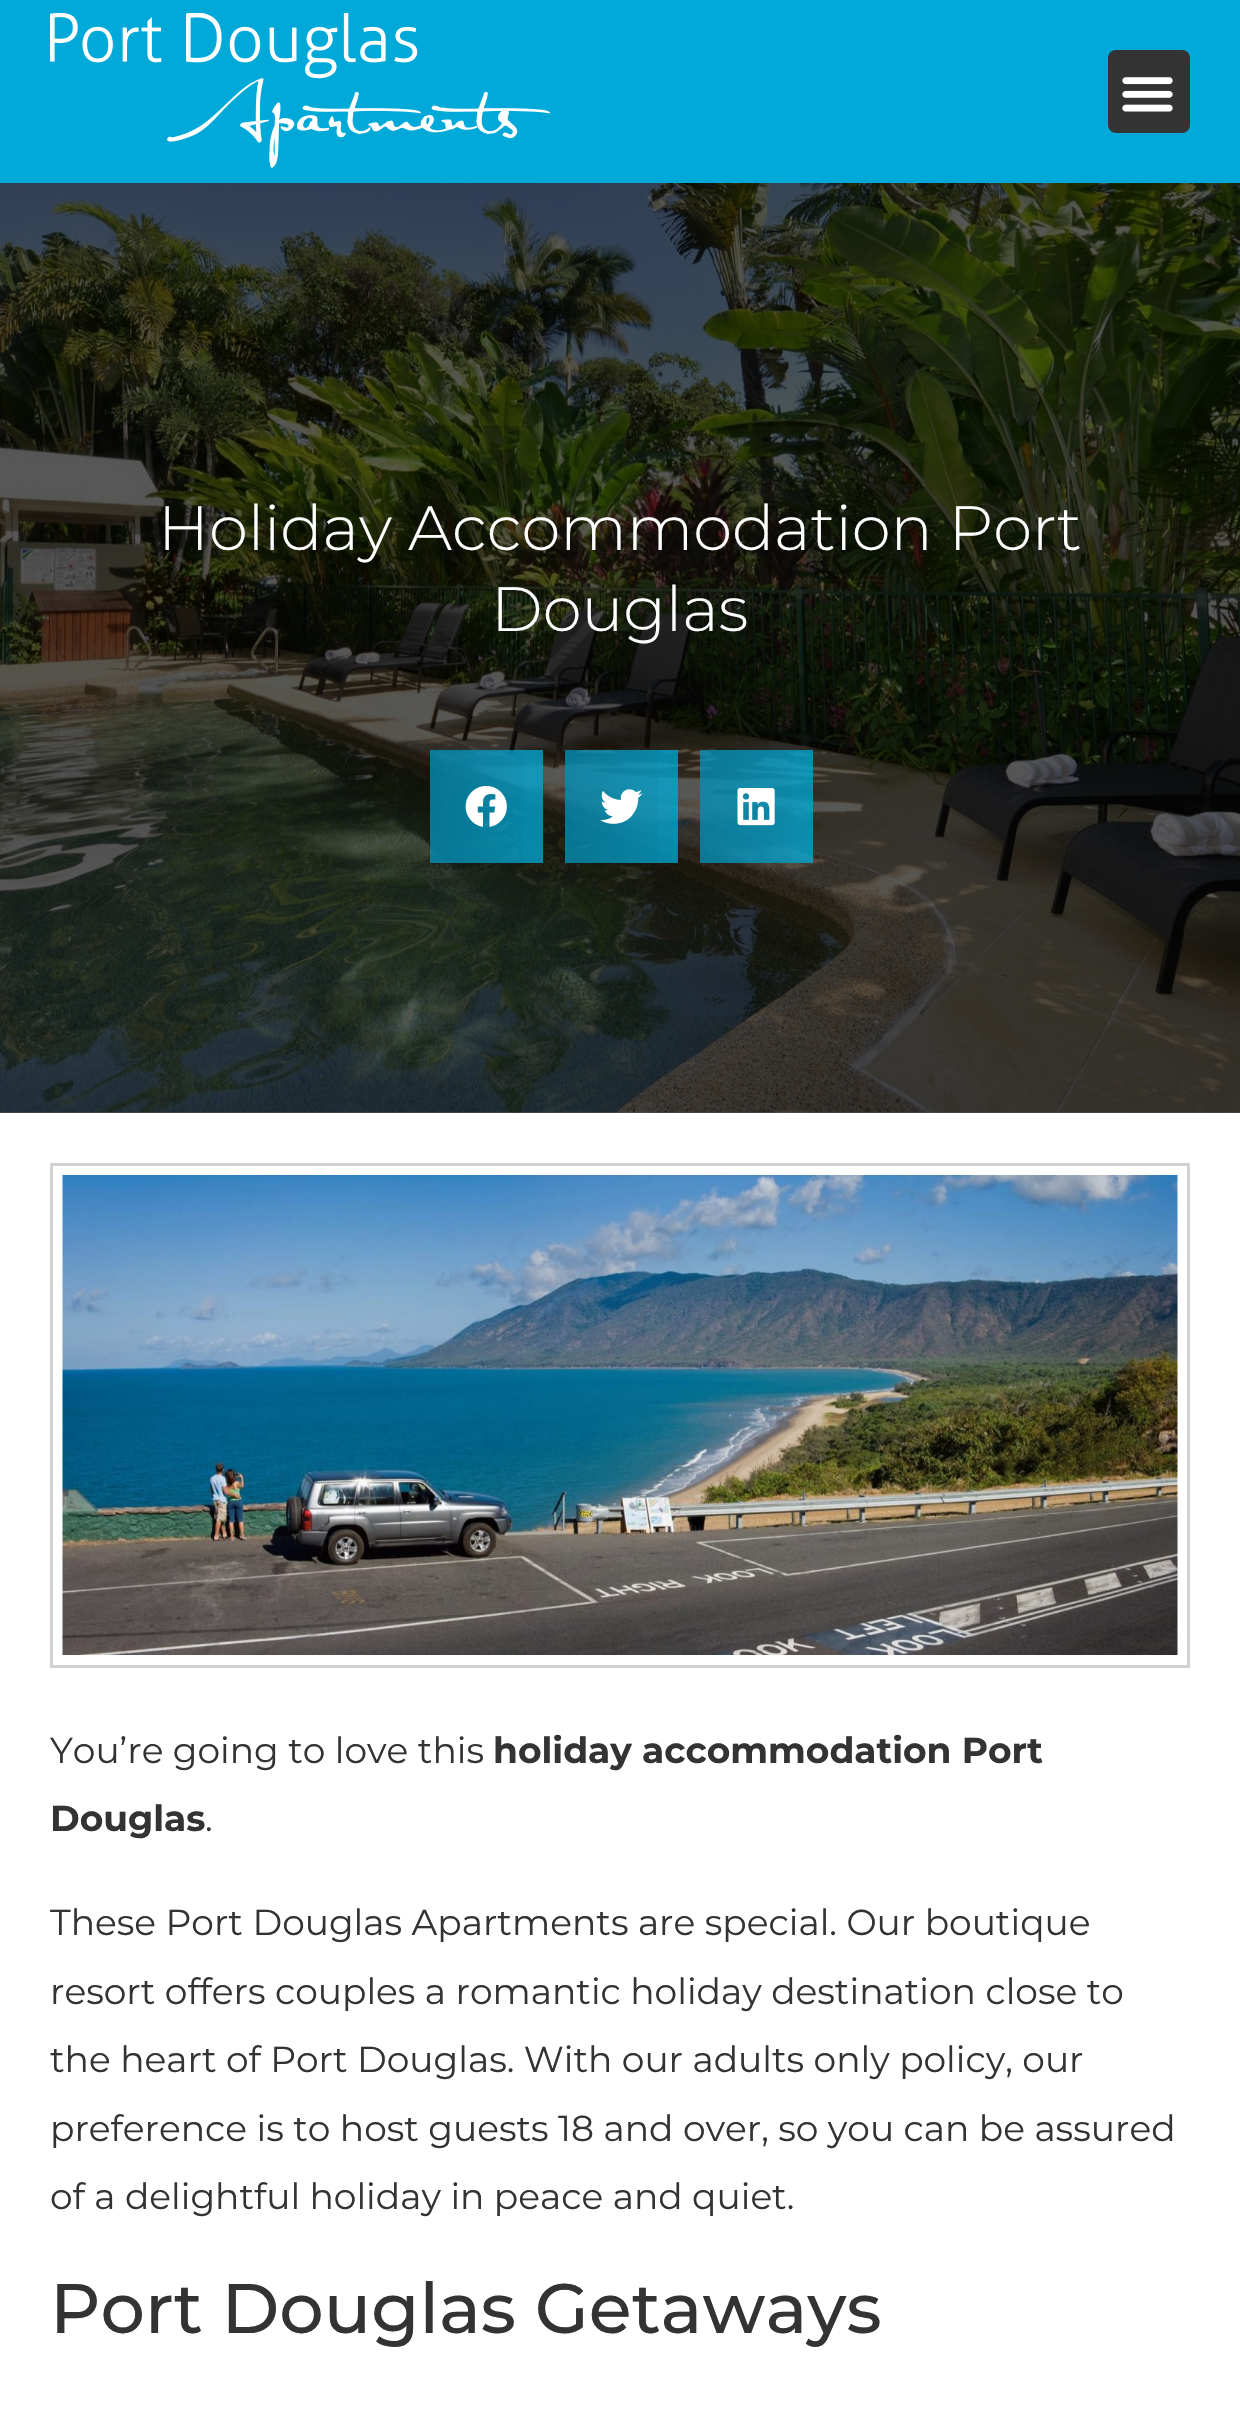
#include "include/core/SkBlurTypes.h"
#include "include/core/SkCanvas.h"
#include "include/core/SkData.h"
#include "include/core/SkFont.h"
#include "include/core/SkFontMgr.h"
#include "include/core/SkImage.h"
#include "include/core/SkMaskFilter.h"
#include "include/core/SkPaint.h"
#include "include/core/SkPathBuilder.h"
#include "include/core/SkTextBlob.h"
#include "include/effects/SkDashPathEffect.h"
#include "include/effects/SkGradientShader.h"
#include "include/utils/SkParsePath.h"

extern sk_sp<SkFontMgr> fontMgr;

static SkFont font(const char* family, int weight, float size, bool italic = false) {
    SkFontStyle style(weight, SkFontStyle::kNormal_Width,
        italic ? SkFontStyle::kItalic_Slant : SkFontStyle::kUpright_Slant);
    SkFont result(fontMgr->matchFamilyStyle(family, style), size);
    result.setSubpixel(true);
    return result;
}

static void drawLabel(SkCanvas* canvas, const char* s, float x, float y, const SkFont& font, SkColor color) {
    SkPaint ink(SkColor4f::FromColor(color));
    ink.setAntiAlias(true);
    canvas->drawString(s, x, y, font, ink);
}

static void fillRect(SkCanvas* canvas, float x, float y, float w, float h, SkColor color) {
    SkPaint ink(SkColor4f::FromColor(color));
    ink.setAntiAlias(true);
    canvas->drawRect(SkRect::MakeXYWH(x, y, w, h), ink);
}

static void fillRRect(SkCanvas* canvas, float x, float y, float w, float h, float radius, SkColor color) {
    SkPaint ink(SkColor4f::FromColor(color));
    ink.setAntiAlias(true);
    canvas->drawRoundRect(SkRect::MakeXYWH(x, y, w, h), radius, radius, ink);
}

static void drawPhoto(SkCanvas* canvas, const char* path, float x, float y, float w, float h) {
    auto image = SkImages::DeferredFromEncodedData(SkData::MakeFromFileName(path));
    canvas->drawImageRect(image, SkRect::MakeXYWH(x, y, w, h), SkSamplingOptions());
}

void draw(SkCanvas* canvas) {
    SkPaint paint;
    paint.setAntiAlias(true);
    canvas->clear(0xFF575757);
    fillRect(canvas, 0, 0, 1240, 183, 0xFF01A9D8);
    drawPhoto(canvas, "assets/img1.png", 50, 13, 500, 155);
    fillRRect(canvas, 1108, 50, 82, 83, 8, 0xFF333333);
    drawPhoto(canvas, "assets/img2.png", 1122, 77, 51, 35);
    drawPhoto(canvas, "assets/img3.png", 0, 183, 1240, 930);
    SkFont font1 = font("Montserrat", 300, 62.5f);
    drawLabel(canvas, "Holiday Accommodation Port", 158, 550, font1, 0xFFFFFFFF);
    drawLabel(canvas, "Douglas", 491, 631, font1, 0xFFFFFFFF);
    fillRect(canvas, 430, 750, 113, 113, 0xBF01A9D8);
    {
        const SkColor colors[] = {0x1F000000, 0x00000000};
        const float stops[] = {0, 1};
        const SkPoint ends[] = {{430, 806}, {543, 806}};
        paint.setShader(SkGradientShader::MakeLinear(ends, colors, stops, 2, SkTileMode::kClamp));
        paint.setAlpha(255);
    }
    canvas->drawRect(SkRect::MakeXYWH(430, 750, 93, 113), paint);
    drawPhoto(canvas, "assets/img4.png", 465, 786, 42, 41);
    fillRect(canvas, 565, 750, 113, 113, 0xBF01A9D8);
    {
        const SkColor colors[] = {0x1F000000, 0x00000000};
        const float stops[] = {0, 1};
        const SkPoint ends[] = {{565, 806}, {678, 806}};
        paint.setShader(SkGradientShader::MakeLinear(ends, colors, stops, 2, SkTileMode::kClamp));
        paint.setAlpha(255);
    }
    canvas->drawRect(SkRect::MakeXYWH(565, 750, 93, 113), paint);
    drawPhoto(canvas, "assets/img5.png", 600, 789, 43, 35);
    fillRect(canvas, 700, 750, 113, 113, 0xBF01A9D8);
    {
        const SkColor colors[] = {0x1F000000, 0x00000000};
        const float stops[] = {0, 1};
        const SkPoint ends[] = {{700, 806}, {813, 806}};
        paint.setShader(SkGradientShader::MakeLinear(ends, colors, stops, 2, SkTileMode::kClamp));
        paint.setAlpha(255);
    }
    canvas->drawRect(SkRect::MakeXYWH(700, 750, 93, 113), paint);
    drawPhoto(canvas, "assets/img6.png", 737, 788, 38, 38);
    fillRect(canvas, 0, 1113, 1240, 1314, 0xFFFFFFFF);
    paint.setStroke(true);
    paint.setStrokeWidth(3);
    paint.setShader(nullptr);
    paint.setColor(0xFFD1D1D1);
    canvas->drawRect(SkRect::MakeXYWH(51.5f, 1164.5f, 1137, 502), paint);
    drawPhoto(canvas, "assets/img7.png", 62, 1175, 1116, 480);
    SkFont font2 = font("Montserrat", 400, 36);
    drawLabel(canvas, "You’re going to love this", 50, 1763, font2, 0xFF333333);
    SkFont font3 = font("Montserrat", 700, 36);
    drawLabel(canvas, "holiday accommodation Port", 493, 1763, font3, 0xFF333333);
    drawLabel(canvas, "Douglas", 50, 1831, font3, 0xFF333333);
    drawLabel(canvas, ".", 205, 1831, font2, 0xFF333333);
    drawLabel(canvas, "These Port Douglas Apartments are special. Our boutique", 50, 1935, font2, 0xFF333333);
    drawLabel(canvas, "resort offers couples a romantic holiday destination close to", 50, 2004, font2, 0xFF333333);
    drawLabel(canvas, "the heart of Port Douglas. With our adults only policy, our", 50, 2072, font2, 0xFF333333);
    drawLabel(canvas, "preference is to host guests 18 and over, so you can be assured", 50, 2141, font2, 0xFF333333);
    drawLabel(canvas, "of a delightful holiday in peace and quiet.", 50, 2209, font2, 0xFF333333);
    SkFont font4 = font("Montserrat", 500, 70);
    drawLabel(canvas, "Port Douglas Getaways", 50, 2333, font4, 0xFF333333);
}
